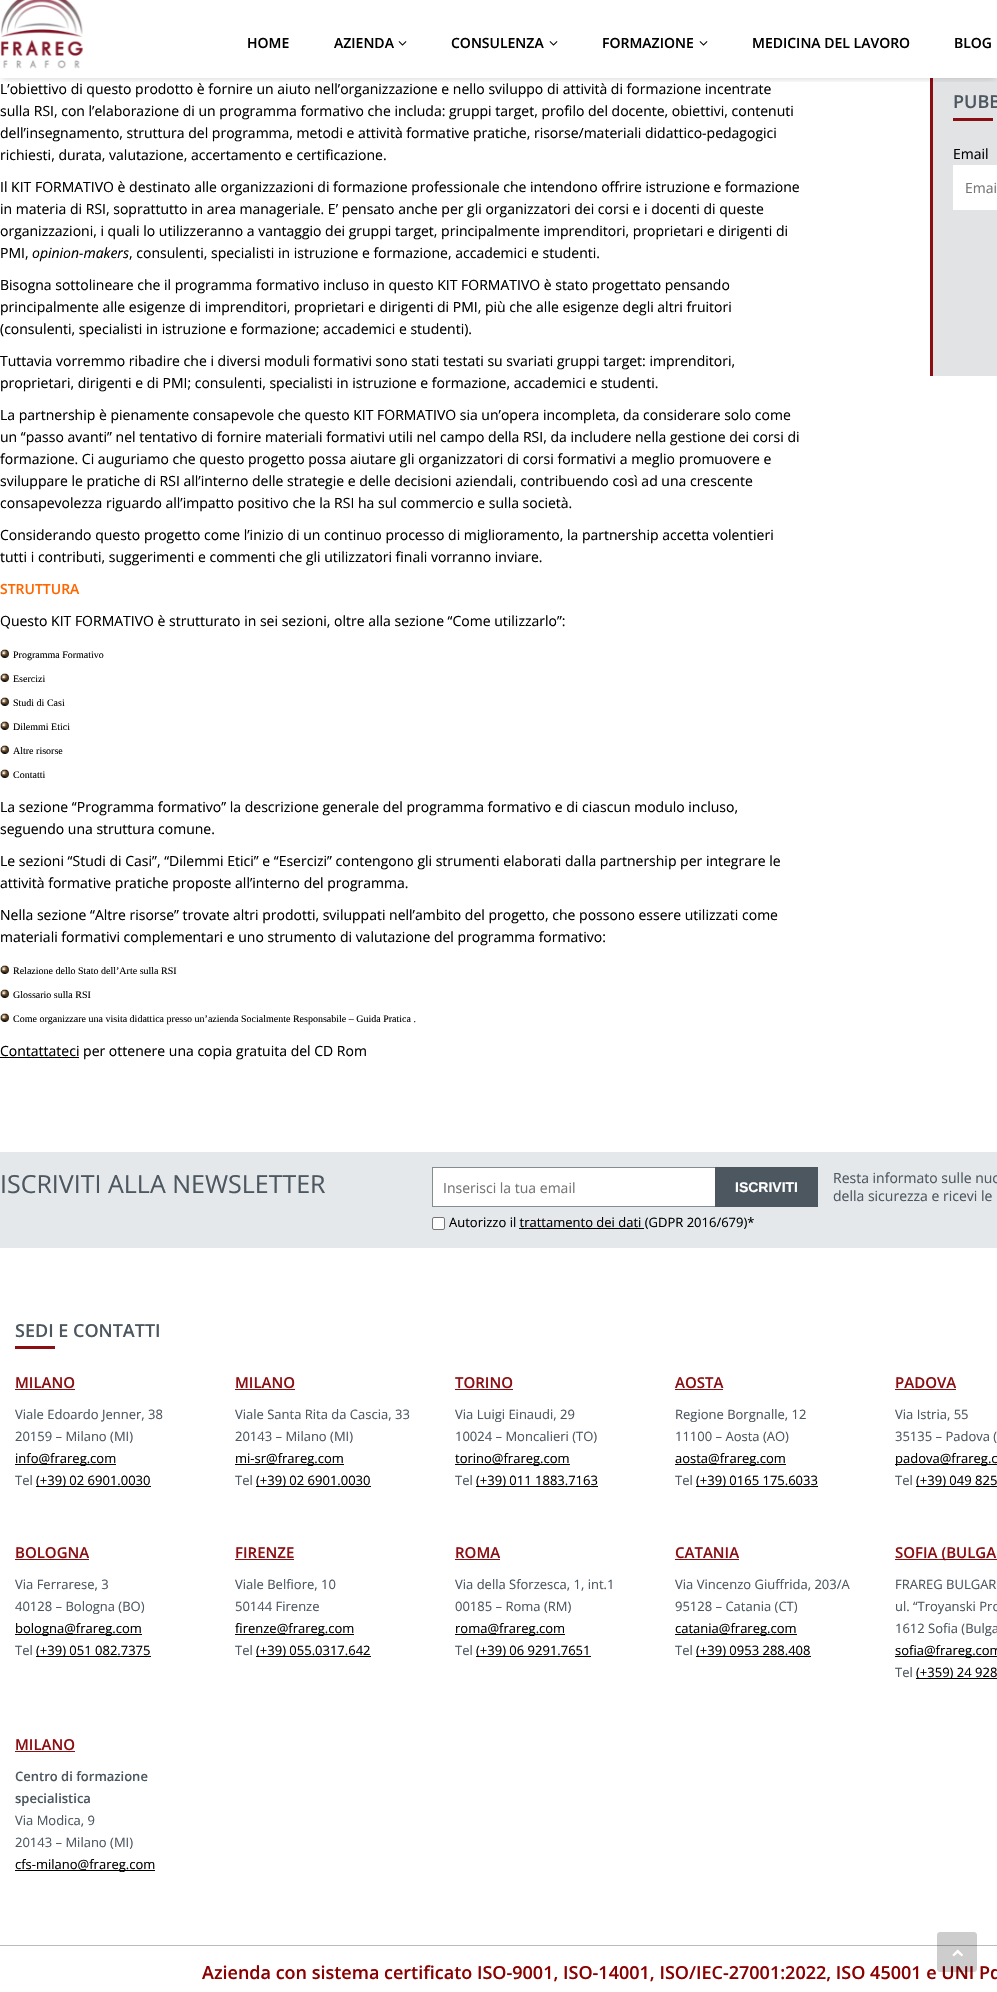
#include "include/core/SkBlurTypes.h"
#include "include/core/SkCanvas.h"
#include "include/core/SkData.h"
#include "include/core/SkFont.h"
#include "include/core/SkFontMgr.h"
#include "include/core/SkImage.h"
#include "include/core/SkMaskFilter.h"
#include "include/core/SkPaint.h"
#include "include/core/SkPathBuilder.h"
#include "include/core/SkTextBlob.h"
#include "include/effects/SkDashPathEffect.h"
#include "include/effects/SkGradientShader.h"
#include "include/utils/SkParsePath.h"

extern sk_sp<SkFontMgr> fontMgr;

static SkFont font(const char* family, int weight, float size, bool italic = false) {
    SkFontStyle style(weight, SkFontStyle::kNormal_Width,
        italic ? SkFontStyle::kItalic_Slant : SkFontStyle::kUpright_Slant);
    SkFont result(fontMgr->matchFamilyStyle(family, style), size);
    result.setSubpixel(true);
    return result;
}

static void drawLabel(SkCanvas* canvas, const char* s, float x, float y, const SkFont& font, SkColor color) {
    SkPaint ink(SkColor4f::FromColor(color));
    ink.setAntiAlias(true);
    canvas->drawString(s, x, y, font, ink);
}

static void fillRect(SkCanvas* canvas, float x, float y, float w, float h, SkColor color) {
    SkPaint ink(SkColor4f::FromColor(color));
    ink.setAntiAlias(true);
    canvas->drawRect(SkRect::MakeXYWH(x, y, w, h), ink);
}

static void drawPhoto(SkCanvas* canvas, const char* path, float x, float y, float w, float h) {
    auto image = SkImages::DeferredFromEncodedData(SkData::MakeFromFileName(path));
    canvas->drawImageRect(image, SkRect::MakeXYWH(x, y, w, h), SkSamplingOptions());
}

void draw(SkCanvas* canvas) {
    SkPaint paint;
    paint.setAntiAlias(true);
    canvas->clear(0xFFFFFFFF);
    fillRect(canvas, 933, 78, 64, 298, 0xFFE2E3E5);
    fillRect(canvas, 930, 78, 3, 298, 0xFF8B0E12);
    canvas->save();
    canvas->clipRect(SkRect::MakeXYWH(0, 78, 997, 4));
    paint.setColor(0x26000000);
    paint.setMaskFilter(SkMaskFilter::MakeBlur(kNormal_SkBlurStyle, 3));
    canvas->drawRect(SkRect::MakeXYWH(2, -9, 993, 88), paint);
    paint.setMaskFilter(nullptr);
    canvas->restore();
    drawPhoto(canvas, "assets/img1.png", 0, 0, 83, 69);
    SkFont font1 = font("Open Sans", 600, 14);
    drawLabel(canvas, "HOME", 247, 48, font1, 0xFF000000);
    drawLabel(canvas, "AZIENDA", 334, 48, font1, 0xFF000000);
    drawPhoto(canvas, "assets/img2.png", 398, 41, 9, 5);
    drawLabel(canvas, "CONSULENZA", 451, 48, font1, 0xFF000000);
    drawPhoto(canvas, "assets/img2.png", 549, 41, 9, 5);
    drawLabel(canvas, "FORMAZIONE", 602, 48, font1, 0xFF000000);
    drawPhoto(canvas, "assets/img2.png", 699, 41, 9, 5);
    drawLabel(canvas, "MEDICINA DEL LAVORO", 752, 48, font1, 0xFF000000);
    drawLabel(canvas, "BLOG", 954, 48, font1, 0xFF000000);
    SkFont font2 = font("Open Sans", 400, 14);
    drawLabel(canvas, "L’obiettivo di questo prodotto è fornire un aiuto nell’organizzazione e nello sviluppo di attività di formazione incentrate", 0, 94, font2, 0xFF000000);
    drawLabel(canvas, "sulla RSI, con l’elaborazione di un programma formativo che includa: gruppi target, profilo del docente, obiettivi, contenuti", 0, 116, font2, 0xFF000000);
    drawLabel(canvas, "dell’insegnamento, struttura del programma, metodi e attività formative pratiche, risorse/materiali didattico-pedagogici", 0, 138, font2, 0xFF000000);
    drawLabel(canvas, "richiesti, durata, valutazione, accertamento e certificazione.", 0, 160, font2, 0xFF000000);
    drawLabel(canvas, "Il KIT FORMATIVO è destinato alle organizzazioni di formazione professionale che intendono offrire istruzione e formazione", 0, 192, font2, 0xFF000000);
    drawLabel(canvas, "in materia di RSI, soprattutto in area manageriale. E’ pensato anche per gli organizzatori dei corsi e i docenti di queste", 0, 214, font2, 0xFF000000);
    drawLabel(canvas, "organizzazioni, i quali lo utilizzeranno a vantaggio dei gruppi target, principalmente imprenditori, proprietari e dirigenti di", 0, 236, font2, 0xFF000000);
    drawLabel(canvas, "PMI,", 0, 258, font2, 0xFF000000);
    SkFont font3 = font("Open Sans", 400, 14, true);
    drawLabel(canvas, "opinion-makers", 32, 258, font3, 0xFF000000);
    drawLabel(canvas, ", consulenti, specialisti in istruzione e formazione, accademici e studenti.", 129, 258, font2, 0xFF000000);
    drawLabel(canvas, "Bisogna sottolineare che il programma formativo incluso in questo KIT FORMATIVO è stato progettato pensando", 0, 290, font2, 0xFF000000);
    drawLabel(canvas, "principalmente alle esigenze di imprenditori, proprietari e dirigenti di PMI, più che alle esigenze degli altri fruitori", 0, 312, font2, 0xFF000000);
    drawLabel(canvas, "(consulenti, specialisti in istruzione e formazione; accademici e studenti).", 0, 334, font2, 0xFF000000);
    drawLabel(canvas, "Tuttavia vorremmo ribadire che i diversi moduli formativi sono stati testati su svariati gruppi target: imprenditori,", 0, 366, font2, 0xFF000000);
    drawLabel(canvas, "proprietari, dirigenti e di PMI; consulenti, specialisti in istruzione e formazione, accademici e studenti.", 0, 388, font2, 0xFF000000);
    drawLabel(canvas, "La partnership è pienamente consapevole che questo KIT FORMATIVO sia un’opera incompleta, da considerare solo come", 0, 420, font2, 0xFF000000);
    drawLabel(canvas, "un “passo avanti” nel tentativo di fornire materiali formativi utili nel campo della RSI, da includere nella gestione dei corsi di", 0, 442, font2, 0xFF000000);
    drawLabel(canvas, "formazione. Ci auguriamo che questo progetto possa aiutare gli organizzatori di corsi formativi a meglio promuovere e", 0, 464, font2, 0xFF000000);
    drawLabel(canvas, "sviluppare le pratiche di RSI all’interno delle strategie e delle decisioni aziendali, contribuendo così ad una crescente", 0, 486, font2, 0xFF000000);
    drawLabel(canvas, "consapevolezza riguardo all’impatto positivo che la RSI ha sul commercio e sulla società.", 0, 508, font2, 0xFF000000);
    drawLabel(canvas, "Considerando questo progetto come l’inizio di un continuo processo di miglioramento, la partnership accetta volentieri", 0, 540, font2, 0xFF000000);
    drawLabel(canvas, "tutti i contributi, suggerimenti e commenti che gli utilizzatori finali vorranno inviare.", 0, 562, font2, 0xFF000000);
    drawLabel(canvas, "STRUTTURA", 0, 594, font1, 0xFFFF6600);
    drawLabel(canvas, "Questo KIT FORMATIVO è strutturato in sei sezioni, oltre alla sezione “Come utilizzarlo”:", 0, 626, font2, 0xFF000000);
    drawPhoto(canvas, "assets/img3.png", 0, 649, 9, 9);
    SkFont font4 = font("Liberation Serif", 400, 10);
    drawLabel(canvas, "Programma Formativo", 13, 658, font4, 0xFF000000);
    drawPhoto(canvas, "assets/img3.png", 0, 673, 9, 9);
    drawLabel(canvas, "Esercizi", 13, 682, font4, 0xFF000000);
    drawPhoto(canvas, "assets/img3.png", 0, 697, 9, 9);
    drawLabel(canvas, "Studi di Casi", 13, 706, font4, 0xFF000000);
    drawPhoto(canvas, "assets/img3.png", 0, 721, 9, 9);
    drawLabel(canvas, "Dilemmi Etici", 13, 730, font4, 0xFF000000);
    drawPhoto(canvas, "assets/img3.png", 0, 745, 9, 9);
    drawLabel(canvas, "Altre risorse", 13, 754, font4, 0xFF000000);
    drawPhoto(canvas, "assets/img3.png", 0, 769, 9, 9);
    drawLabel(canvas, "Contatti", 13, 778, font4, 0xFF000000);
    drawLabel(canvas, "La sezione “Programma formativo” la descrizione generale del programma formativo e di ciascun modulo incluso,", 0, 812, font2, 0xFF000000);
    drawLabel(canvas, "seguendo una struttura comune.", 0, 834, font2, 0xFF000000);
    drawLabel(canvas, "Le sezioni “Studi di Casi”, “Dilemmi Etici” e “Esercizi” contengono gli strumenti elaborati dalla partnership per integrare le", 0, 866, font2, 0xFF000000);
    drawLabel(canvas, "attività formative pratiche proposte all’interno del programma.", 0, 888, font2, 0xFF000000);
    drawLabel(canvas, "Nella sezione “Altre risorse” trovate altri prodotti, sviluppati nell’ambito del progetto, che possono essere utilizzati come", 0, 920, font2, 0xFF000000);
    drawLabel(canvas, "materiali formativi complementari e uno strumento di valutazione del programma formativo:", 0, 942, font2, 0xFF000000);
    drawPhoto(canvas, "assets/img4.png", 0, 965, 9, 9);
    drawLabel(canvas, "Relazione dello Stato dell’Arte sulla RSI", 13, 974, font4, 0xFF000000);
    drawPhoto(canvas, "assets/img3.png", 0, 989, 9, 9);
    drawLabel(canvas, "Glossario sulla RSI", 13, 998, font4, 0xFF000000);
    drawPhoto(canvas, "assets/img3.png", 0, 1013, 9, 9);
    drawLabel(canvas, "Come organizzare una visita didattica presso un’azienda Socialmente Responsabile – Guida Pratica .", 13, 1022, font4, 0xFF000000);
    fillRect(canvas, 0, 1057, 79, 1, 0xFF000000);
    drawLabel(canvas, "Contattateci per ottenere una copia gratuita del CD Rom", 0, 1056, font2, 0xFF000000);
    SkFont font5 = font("Open Sans", 600, 18);
    drawLabel(canvas, "PUBB", 953, 108, font5, 0xFF4D5760);
    fillRect(canvas, 953, 118, 40, 3, 0xFF8B0E12);
    drawLabel(canvas, "Email", 953, 159, font2, 0xFF000000);
    fillRect(canvas, 953, 165, 44, 45, 0xFFFFFFFF);
    drawLabel(canvas, "Emai", 965, 193, font2, 0xFF757575);
    fillRect(canvas, 0, 1152, 997, 96, 0xFFE4E8EB);
    SkFont font6 = font("Open Sans", 400, 25);
    drawLabel(canvas, "ISCRIVITI ALLA NEWSLETTER", 0, 1193, font6, 0xFF4D5760);
    fillRect(canvas, 433, 1168, 282, 38, 0xFFFFFFFF);
    paint.setStroke(true);
    paint.setStrokeWidth(1);
    paint.setColor(0xFF828D93);
    canvas->drawRect(SkRect::MakeXYWH(432.5f, 1167.5f, 385, 39), paint);
    drawLabel(canvas, "Inserisci la tua email", 443, 1193, font2, 0xFF757575);
    fillRect(canvas, 715, 1167, 103, 40, 0xFF4D5760);
    SkFont font7 = font("Liberation Sans", 700, 14);
    drawLabel(canvas, "ISCRIVITI", 735, 1192, font7, 0xFFFFFFFF);
    paint.setStroke(false);
    paint.setColor(0xFFFFFFFF);
    canvas->drawRoundRect(SkRect::MakeXYWH(432.5f, 1217.5f, 12, 12), 1.5f, 1.5f, paint);
    paint.setStroke(true);
    paint.setColor(0xFF767676);
    canvas->drawRoundRect(SkRect::MakeXYWH(432.5f, 1217.5f, 12, 12), 1.5f, 1.5f, paint);
    SkFont font8 = font("Open Sans", 400, 13);
    drawLabel(canvas, "Autorizzo il trattamento dei dati (GDPR 2016/679)*", 449, 1227, font8, 0xFF000000);
    fillRect(canvas, 519, 1228, 125, 1, 0xFF000000);
    drawLabel(canvas, "Resta informato sulle nuo", 833, 1183, font2, 0xFF4D5760);
    drawLabel(canvas, "della sicurezza e ricevi le", 833, 1201, font2, 0xFF4D5760);
    drawLabel(canvas, "SEDI E CONTATTI", 15, 1337, font5, 0xFF4D5760);
    fillRect(canvas, 15, 1346, 40, 3, 0xFF8B0E12);
    SkFont font9 = font("Open Sans", 600, 15);
    drawLabel(canvas, "MILANO", 15, 1388, font9, 0xFF8B0E12);
    fillRect(canvas, 15, 1389, 60, 1, 0xFF8B0E12);
    drawLabel(canvas, "Viale Edoardo Jenner, 38", 15, 1419, font8, 0xFF4D5760);
    drawLabel(canvas, "20159 – Milano (MI)", 15, 1441, font8, 0xFF4D5760);
    fillRect(canvas, 15, 1464, 101, 1, 0xFF000000);
    drawLabel(canvas, "info@frareg.com", 15, 1463, font8, 0xFF000000);
    drawLabel(canvas, "Tel", 15, 1485, font8, 0xFF4D5760);
    fillRect(canvas, 36, 1486, 115, 1, 0xFF000000);
    drawLabel(canvas, "(+39) 02 6901.0030", 36, 1485, font8, 0xFF000000);
    drawLabel(canvas, "MILANO", 235, 1388, font9, 0xFF8B0E12);
    fillRect(canvas, 235, 1389, 60, 1, 0xFF8B0E12);
    drawLabel(canvas, "Viale Santa Rita da Cascia, 33", 235, 1419, font8, 0xFF4D5760);
    drawLabel(canvas, "20143 – Milano (MI)", 235, 1441, font8, 0xFF4D5760);
    fillRect(canvas, 235, 1464, 109, 1, 0xFF000000);
    drawLabel(canvas, "mi-sr@frareg.com", 235, 1463, font8, 0xFF000000);
    drawLabel(canvas, "Tel", 235, 1485, font8, 0xFF4D5760);
    fillRect(canvas, 256, 1486, 115, 1, 0xFF000000);
    drawLabel(canvas, "(+39) 02 6901.0030", 256, 1485, font8, 0xFF000000);
    drawLabel(canvas, "TORINO", 455, 1388, font9, 0xFF8B0E12);
    fillRect(canvas, 455, 1389, 58, 1, 0xFF8B0E12);
    drawLabel(canvas, "Via Luigi Einaudi, 29", 455, 1419, font8, 0xFF4D5760);
    drawLabel(canvas, "10024 – Moncalieri (TO)", 455, 1441, font8, 0xFF4D5760);
    fillRect(canvas, 455, 1464, 115, 1, 0xFF000000);
    drawLabel(canvas, "torino@frareg.com", 455, 1463, font8, 0xFF000000);
    drawLabel(canvas, "Tel", 455, 1485, font8, 0xFF4D5760);
    fillRect(canvas, 476, 1486, 122, 1, 0xFF000000);
    drawLabel(canvas, "(+39) 011 1883.7163", 476, 1485, font8, 0xFF000000);
    drawLabel(canvas, "AOSTA", 675, 1388, font9, 0xFF8B0E12);
    fillRect(canvas, 675, 1389, 48, 1, 0xFF8B0E12);
    drawLabel(canvas, "Regione Borgnalle, 12", 675, 1419, font8, 0xFF4D5760);
    drawLabel(canvas, "11100 – Aosta (AO)", 675, 1441, font8, 0xFF4D5760);
    fillRect(canvas, 675, 1464, 111, 1, 0xFF000000);
    drawLabel(canvas, "aosta@frareg.com", 675, 1463, font8, 0xFF000000);
    drawLabel(canvas, "Tel", 675, 1485, font8, 0xFF4D5760);
    fillRect(canvas, 696, 1486, 122, 1, 0xFF000000);
    drawLabel(canvas, "(+39) 0165 175.6033", 696, 1485, font8, 0xFF000000);
    drawLabel(canvas, "PADOVA", 895, 1388, font9, 0xFF8B0E12);
    fillRect(canvas, 895, 1389, 61, 1, 0xFF8B0E12);
    drawLabel(canvas, "Via Istria, 55", 895, 1419, font8, 0xFF4D5760);
    drawLabel(canvas, "35135 – Padova (", 895, 1441, font8, 0xFF4D5760);
    fillRect(canvas, 895, 1464, 102, 1, 0xFF000000);
    drawLabel(canvas, "padova@frareg.c", 895, 1463, font8, 0xFF000000);
    drawLabel(canvas, "Tel", 895, 1485, font8, 0xFF4D5760);
    fillRect(canvas, 916, 1486, 81, 1, 0xFF000000);
    drawLabel(canvas, "(+39) 049 825", 916, 1485, font8, 0xFF000000);
    drawLabel(canvas, "BOLOGNA", 15, 1558, font9, 0xFF8B0E12);
    fillRect(canvas, 15, 1559, 74, 1, 0xFF8B0E12);
    drawLabel(canvas, "Via Ferrarese, 3", 15, 1589, font8, 0xFF4D5760);
    drawLabel(canvas, "40128 – Bologna (BO)", 15, 1611, font8, 0xFF4D5760);
    fillRect(canvas, 15, 1634, 127, 1, 0xFF000000);
    drawLabel(canvas, "bologna@frareg.com", 15, 1633, font8, 0xFF000000);
    drawLabel(canvas, "Tel", 15, 1655, font8, 0xFF4D5760);
    fillRect(canvas, 36, 1656, 115, 1, 0xFF000000);
    drawLabel(canvas, "(+39) 051 082.7375", 36, 1655, font8, 0xFF000000);
    drawLabel(canvas, "FIRENZE", 235, 1558, font9, 0xFF8B0E12);
    fillRect(canvas, 235, 1559, 59, 1, 0xFF8B0E12);
    drawLabel(canvas, "Viale Belfiore, 10", 235, 1589, font8, 0xFF4D5760);
    drawLabel(canvas, "50144 Firenze", 235, 1611, font8, 0xFF4D5760);
    fillRect(canvas, 235, 1634, 119, 1, 0xFF000000);
    drawLabel(canvas, "firenze@frareg.com", 235, 1633, font8, 0xFF000000);
    drawLabel(canvas, "Tel", 235, 1655, font8, 0xFF4D5760);
    fillRect(canvas, 256, 1656, 115, 1, 0xFF000000);
    drawLabel(canvas, "(+39) 055.0317.642", 256, 1655, font8, 0xFF000000);
    drawLabel(canvas, "ROMA", 455, 1558, font9, 0xFF8B0E12);
    fillRect(canvas, 455, 1559, 45, 1, 0xFF8B0E12);
    drawLabel(canvas, "Via della Sforzesca, 1, int.1", 455, 1589, font8, 0xFF4D5760);
    drawLabel(canvas, "00185 – Roma (RM)", 455, 1611, font8, 0xFF4D5760);
    fillRect(canvas, 455, 1634, 110, 1, 0xFF000000);
    drawLabel(canvas, "roma@frareg.com", 455, 1633, font8, 0xFF000000);
    drawLabel(canvas, "Tel", 455, 1655, font8, 0xFF4D5760);
    fillRect(canvas, 476, 1656, 115, 1, 0xFF000000);
    drawLabel(canvas, "(+39) 06 9291.7651", 476, 1655, font8, 0xFF000000);
    drawLabel(canvas, "CATANIA", 675, 1558, font9, 0xFF8B0E12);
    fillRect(canvas, 675, 1559, 64, 1, 0xFF8B0E12);
    drawLabel(canvas, "Via Vincenzo Giuffrida, 203/A", 675, 1589, font8, 0xFF4D5760);
    drawLabel(canvas, "95128 – Catania (CT)", 675, 1611, font8, 0xFF4D5760);
    fillRect(canvas, 675, 1634, 122, 1, 0xFF000000);
    drawLabel(canvas, "catania@frareg.com", 675, 1633, font8, 0xFF000000);
    drawLabel(canvas, "Tel", 675, 1655, font8, 0xFF4D5760);
    fillRect(canvas, 696, 1656, 115, 1, 0xFF000000);
    drawLabel(canvas, "(+39) 0953 288.408", 696, 1655, font8, 0xFF000000);
    fillRect(canvas, 895, 1559, 102, 1, 0xFF8B0E12);
    drawLabel(canvas, "SOFIA (BULGA", 895, 1558, font9, 0xFF8B0E12);
    drawLabel(canvas, "FRAREG BULGAR", 895, 1589, font8, 0xFF4D5760);
    drawLabel(canvas, "ul. “Troyanski Pro", 895, 1611, font8, 0xFF4D5760);
    drawLabel(canvas, "1612 Sofia (Bulga", 895, 1633, font8, 0xFF4D5760);
    fillRect(canvas, 895, 1656, 102, 1, 0xFF000000);
    drawLabel(canvas, "sofia@frareg.com", 895, 1655, font8, 0xFF000000);
    drawLabel(canvas, "Tel", 895, 1677, font8, 0xFF4D5760);
    fillRect(canvas, 916, 1678, 81, 1, 0xFF000000);
    drawLabel(canvas, "(+359) 24 928", 916, 1677, font8, 0xFF000000);
    drawLabel(canvas, "MILANO", 15, 1750, font9, 0xFF8B0E12);
    fillRect(canvas, 15, 1751, 60, 1, 0xFF8B0E12);
    SkFont font10 = font("Open Sans", 600, 13);
    drawLabel(canvas, "Centro di formazione", 15, 1781, font10, 0xFF4D5760);
    drawLabel(canvas, "specialistica", 15, 1803, font10, 0xFF4D5760);
    drawLabel(canvas, "Via Modica, 9", 15, 1825, font8, 0xFF4D5760);
    drawLabel(canvas, "20143 – Milano (MI)", 15, 1847, font8, 0xFF4D5760);
    fillRect(canvas, 15, 1870, 140, 1, 0xFF000000);
    drawLabel(canvas, "cfs-milano@frareg.com", 15, 1869, font8, 0xFF000000);
    fillRect(canvas, 0, 1945, 997, 1, 0xFFBBBBBB);
    drawLabel(canvas, "Azienda con sistema certificato ISO-9001, ISO-14001, ISO/IEC-27001:2022, ISO 45001 e UNI Pd", 202, 1979, font5, 0xFF8B0000);
    drawPhoto(canvas, "assets/img5.png", 937, 1932, 40, 40);
}
